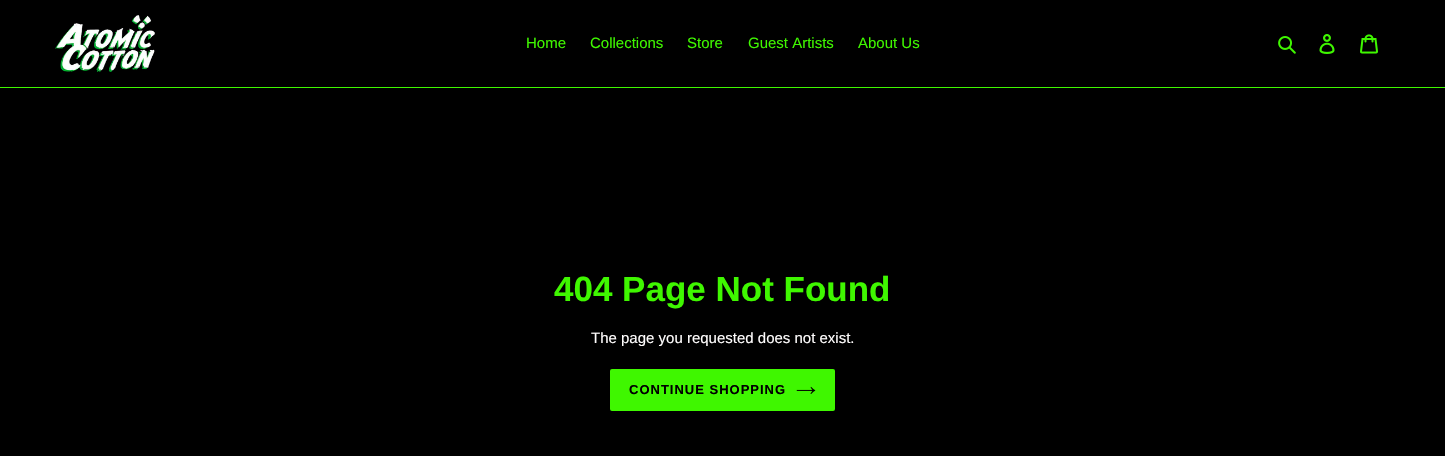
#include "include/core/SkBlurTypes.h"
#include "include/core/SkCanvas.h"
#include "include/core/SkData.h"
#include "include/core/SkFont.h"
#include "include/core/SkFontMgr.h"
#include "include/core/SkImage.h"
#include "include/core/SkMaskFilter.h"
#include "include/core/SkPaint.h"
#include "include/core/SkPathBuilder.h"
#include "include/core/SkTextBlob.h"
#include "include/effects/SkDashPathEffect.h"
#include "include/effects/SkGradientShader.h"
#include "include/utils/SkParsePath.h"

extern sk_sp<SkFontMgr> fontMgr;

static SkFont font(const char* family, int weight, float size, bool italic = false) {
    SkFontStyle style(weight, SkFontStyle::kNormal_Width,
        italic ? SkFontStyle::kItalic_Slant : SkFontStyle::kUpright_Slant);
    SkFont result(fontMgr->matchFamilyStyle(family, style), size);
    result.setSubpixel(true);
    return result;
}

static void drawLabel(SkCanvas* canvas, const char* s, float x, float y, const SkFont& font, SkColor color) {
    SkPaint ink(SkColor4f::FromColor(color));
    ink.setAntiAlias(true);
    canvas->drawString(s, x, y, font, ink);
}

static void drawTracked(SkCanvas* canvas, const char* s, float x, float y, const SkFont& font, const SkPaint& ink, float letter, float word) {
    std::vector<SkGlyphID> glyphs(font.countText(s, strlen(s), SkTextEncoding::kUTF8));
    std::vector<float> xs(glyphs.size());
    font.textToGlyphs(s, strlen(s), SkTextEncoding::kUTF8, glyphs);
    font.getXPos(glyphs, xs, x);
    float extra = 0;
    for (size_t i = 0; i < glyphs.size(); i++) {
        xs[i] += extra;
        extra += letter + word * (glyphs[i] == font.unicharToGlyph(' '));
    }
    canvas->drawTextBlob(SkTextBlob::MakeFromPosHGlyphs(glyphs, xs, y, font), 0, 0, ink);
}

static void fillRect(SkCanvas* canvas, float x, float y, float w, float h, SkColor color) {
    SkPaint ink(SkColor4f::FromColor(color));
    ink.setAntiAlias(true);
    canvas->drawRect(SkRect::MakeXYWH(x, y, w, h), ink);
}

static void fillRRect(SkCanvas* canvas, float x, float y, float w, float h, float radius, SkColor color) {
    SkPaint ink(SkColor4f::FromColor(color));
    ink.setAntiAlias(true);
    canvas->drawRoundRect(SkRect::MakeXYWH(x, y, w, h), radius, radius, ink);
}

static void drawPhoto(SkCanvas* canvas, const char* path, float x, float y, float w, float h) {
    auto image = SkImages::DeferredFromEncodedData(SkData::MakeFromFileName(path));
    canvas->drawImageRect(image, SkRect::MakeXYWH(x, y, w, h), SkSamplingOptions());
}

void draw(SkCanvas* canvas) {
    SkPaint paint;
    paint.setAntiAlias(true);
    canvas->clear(0xFF000000);
    fillRect(canvas, 0, 87, 1445, 1, 0xFF3FF700);
    drawPhoto(canvas, "assets/img1.png", 55, 15, 100, 57);
    SkFont font1 = font("Liberation Sans", 400, 15);
    drawLabel(canvas, "Home", 526, 48, font1, 0xFF3FF700);
    drawLabel(canvas, "Collections", 590, 48, font1, 0xFF3FF700);
    drawLabel(canvas, "Store", 687, 48, font1, 0xFF3FF700);
    drawLabel(canvas, "Guest Artists", 748, 48, font1, 0xFF3FF700);
    drawLabel(canvas, "About Us", 858, 48, font1, 0xFF3FF700);
    drawPhoto(canvas, "assets/img2.png", 1278, 36, 18, 18);
    drawPhoto(canvas, "assets/img3.png", 1319, 34, 16, 20);
    drawPhoto(canvas, "assets/img4.png", 1360, 34, 18, 20);
    SkFont font2 = font("Liberation Sans", 700, 35);
    drawLabel(canvas, "404 Page Not Found", 554, 301, font2, 0xFF3FF700);
    drawLabel(canvas, "The page you requested does not exist.", 591, 343, font1, 0xFFFFFDFD);
    fillRRect(canvas, 610, 369, 225, 42, 2, 0xFF3FF700);
    SkFont font3 = font("Liberation Sans", 700, 13);
    paint.setColor(0xFF000000);
    drawTracked(canvas, "CONTINUE SHOPPING", 629, 394, font3, paint, 1, 0);
    drawPhoto(canvas, "assets/img5.png", 796, 386, 20, 8);
}
